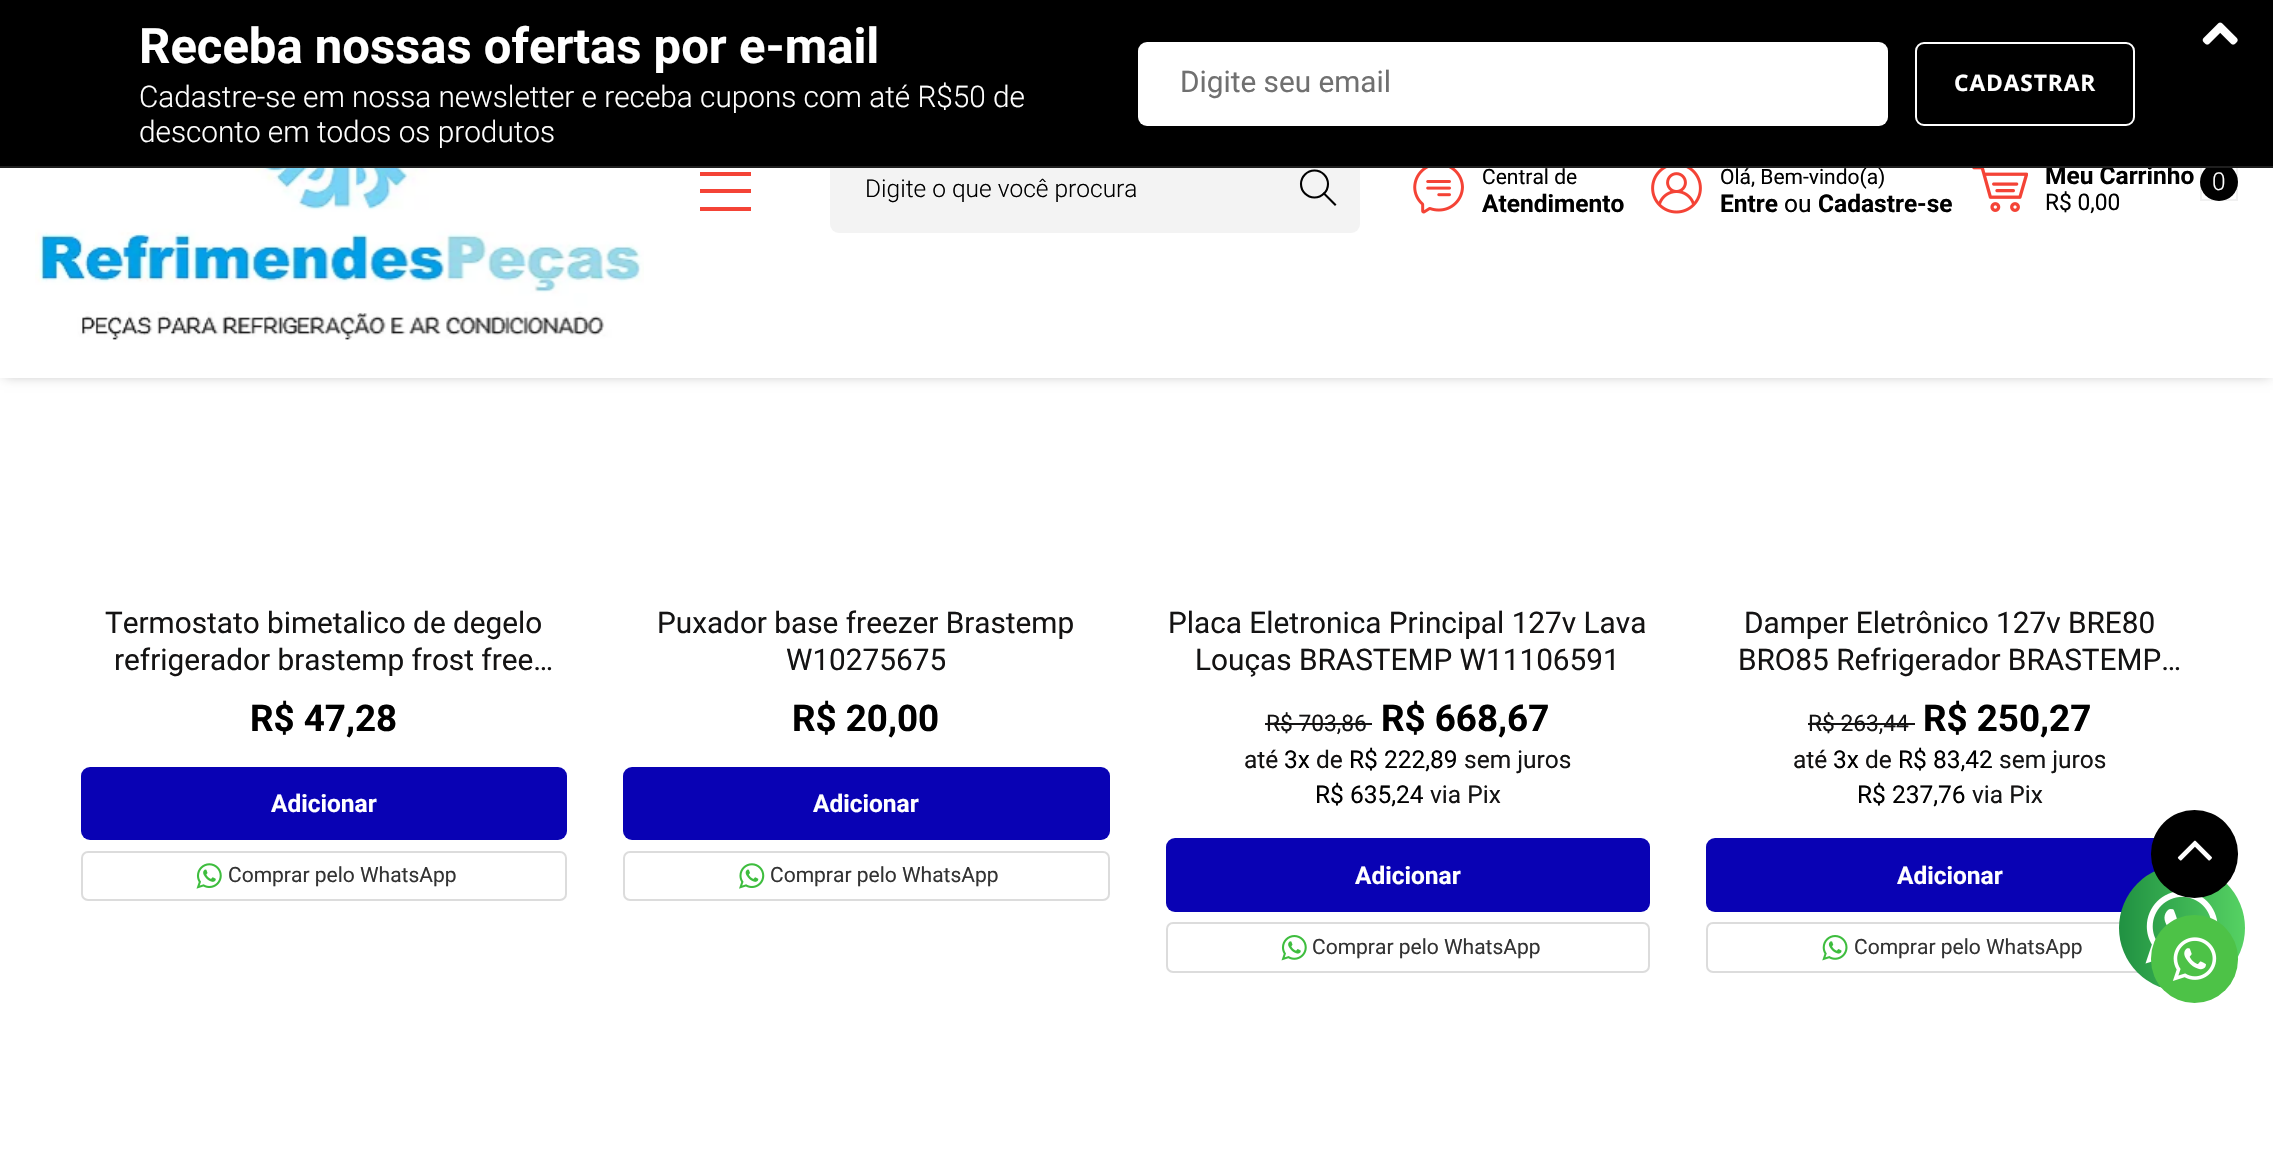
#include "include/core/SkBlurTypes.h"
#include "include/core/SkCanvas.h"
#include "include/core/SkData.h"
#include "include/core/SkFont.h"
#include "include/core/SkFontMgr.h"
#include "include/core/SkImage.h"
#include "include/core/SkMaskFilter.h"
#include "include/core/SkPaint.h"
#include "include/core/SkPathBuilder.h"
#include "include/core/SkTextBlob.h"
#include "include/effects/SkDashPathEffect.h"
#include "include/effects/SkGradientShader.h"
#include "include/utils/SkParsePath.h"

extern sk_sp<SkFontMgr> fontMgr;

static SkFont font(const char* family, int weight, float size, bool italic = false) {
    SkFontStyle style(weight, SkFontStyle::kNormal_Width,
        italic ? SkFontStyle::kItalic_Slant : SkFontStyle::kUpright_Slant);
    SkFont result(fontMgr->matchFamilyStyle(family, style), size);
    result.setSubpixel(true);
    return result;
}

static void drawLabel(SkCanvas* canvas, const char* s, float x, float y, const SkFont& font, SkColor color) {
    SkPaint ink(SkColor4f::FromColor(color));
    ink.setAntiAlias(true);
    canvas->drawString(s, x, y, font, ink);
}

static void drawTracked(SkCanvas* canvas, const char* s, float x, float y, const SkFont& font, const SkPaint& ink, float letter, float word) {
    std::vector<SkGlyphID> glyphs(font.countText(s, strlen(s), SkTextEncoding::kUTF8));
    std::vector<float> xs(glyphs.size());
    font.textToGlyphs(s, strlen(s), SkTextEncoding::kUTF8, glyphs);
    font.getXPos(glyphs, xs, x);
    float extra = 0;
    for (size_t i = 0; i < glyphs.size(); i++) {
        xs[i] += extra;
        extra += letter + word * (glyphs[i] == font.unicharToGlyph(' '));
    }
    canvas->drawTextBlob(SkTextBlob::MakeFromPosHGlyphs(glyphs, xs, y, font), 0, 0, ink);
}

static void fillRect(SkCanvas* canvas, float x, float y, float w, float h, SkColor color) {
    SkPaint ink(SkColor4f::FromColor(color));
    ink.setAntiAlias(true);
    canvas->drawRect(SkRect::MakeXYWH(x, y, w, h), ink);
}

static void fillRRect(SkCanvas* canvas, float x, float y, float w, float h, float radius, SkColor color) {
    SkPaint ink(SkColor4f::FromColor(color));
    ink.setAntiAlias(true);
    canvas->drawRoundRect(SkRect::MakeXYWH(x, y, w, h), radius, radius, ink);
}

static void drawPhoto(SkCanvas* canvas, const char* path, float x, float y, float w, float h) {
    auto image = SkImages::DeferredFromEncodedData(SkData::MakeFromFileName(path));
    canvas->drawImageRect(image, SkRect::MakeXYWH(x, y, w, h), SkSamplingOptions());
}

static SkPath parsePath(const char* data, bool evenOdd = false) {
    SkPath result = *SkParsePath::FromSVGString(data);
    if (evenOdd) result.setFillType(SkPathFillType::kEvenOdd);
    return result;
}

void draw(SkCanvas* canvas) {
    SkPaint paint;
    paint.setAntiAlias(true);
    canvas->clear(0xFFFFFFFF);
    paint.setColor(0x4D000000);
    paint.setMaskFilter(SkMaskFilter::MakeBlur(kNormal_SkBlurStyle, 6));
    canvas->drawRect(SkRect::MakeXYWH(4, -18, 2266, 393), paint);
    paint.setMaskFilter(nullptr);
    fillRect(canvas, 0, 168, 2273, 210, 0xFFFFFFFF);
    fillRRect(canvas, 830, 145, 530, 88, 9, 0xFFF3F3F3);
    paint.setColor(0xFF000000);
    canvas->drawCircle(2219, 182, 19, paint);
    paint.setStroke(true);
    paint.setStrokeWidth(2);
    paint.setColor(0x0F000000);
    canvas->drawRect(SkRect::MakeXYWH(2201, 164, 36, 36), paint);
    fillRect(canvas, 0, 0, 2273, 166, 0xFF000000);
    SkFont font1 = font("Roboto", 400, 21);
    drawLabel(canvas, "Olá, Bem-vindo(a)", 1720, 184, font1, 0xFF000000);
    SkFont font2 = font("Roboto", 700, 24.5f);
    drawLabel(canvas, "Meu Carrinho", 2045, 184, font2, 0xFF000000);
    fillRect(canvas, 0, 166, 2273, 2, 0xFF1F1F1F);
    SkFont font3 = font("Roboto", 700, 49);
    drawLabel(canvas, "Receba nossas ofertas por e-mail", 139, 63, font3, 0xFFFFFFFF);
    SkFont font4 = font("Roboto", 300, 29.75f);
    drawLabel(canvas, "Cadastre-se em nossa newsletter e receba cupons com até R$50 de", 139, 107, font4, 0xFFFFFFFF);
    drawLabel(canvas, "desconto em todos os produtos", 139, 142, font4, 0xFFFFFFFF);
    fillRRect(canvas, 1138, 42, 750, 84, 9, 0xFFFFFFFF);
    SkFont font5 = font("Roboto", 400, 29.75f);
    drawLabel(canvas, "Digite seu email", 1180, 92, font5, 0xFF707070);
    paint.setColor(0xFFFFFFFF);
    canvas->drawRoundRect(SkRect::MakeXYWH(1916, 43, 218, 82), 8, 8, paint);
    SkFont font6 = font("Open Sans", 700, 22.75f);
    paint.setStroke(false);
    drawTracked(canvas, "CADASTRAR", 1954, 91, font6, paint, 0.9f, 0);
    drawPhoto(canvas, "assets/img1.png", 2202, 22, 36, 23);
    drawPhoto(canvas, "assets/img2.png", 35, 168, 609, 172);
    fillRect(canvas, 700, 172, 51, 4, 0xFFF44336);
    fillRect(canvas, 700, 189, 51, 4, 0xFFF44336);
    fillRect(canvas, 700, 207, 51, 4, 0xFFF44336);
    SkFont font7 = font("Roboto", 300, 24.5f);
    drawLabel(canvas, "Digite o que você procura", 865, 197, font7, 0xFF000000);
    paint.setStroke(true);
    paint.setStrokeWidth(2.1f);
    paint.setStrokeCap(SkPaint::kSquare_Cap);
    paint.setColor(0xFF000000);
    canvas->drawPath(parsePath("M1335 204.5L1324 193.5"), paint);
    paint.setStrokeCap(SkPaint::kButt_Cap);
    canvas->drawCircle(1314.5f, 184, 13.5f, paint);
    drawPhoto(canvas, "assets/img3.png", 1413, 168, 51, 46);
    drawLabel(canvas, "Central de", 1482, 184, font1, 0xFF000000);
    drawLabel(canvas, "Atendimento", 1482, 212, font2, 0xFF000000);
    drawPhoto(canvas, "assets/img4.png", 1651, 168, 51, 46);
    drawLabel(canvas, "Entre", 1720, 212, font2, 0xFF000000);
    SkFont font8 = font("Roboto", 400, 24.5f);
    drawLabel(canvas, "ou", 1784, 212, font8, 0xFF000000);
    drawLabel(canvas, "Cadastre-se", 1818, 212, font2, 0xFF000000);
    drawPhoto(canvas, "assets/img5.png", 1972, 168, 56, 44);
    SkFont font9 = font("Roboto", 400, 22.75f);
    drawLabel(canvas, "R$ 0,00", 2045, 210, font9, 0xFF000000);
    drawLabel(canvas, "0", 2212, 190, font7, 0xFFFFFFFF);
    drawLabel(canvas, "Termostato bimetalico de degelo", 105, 633, font5, 0xFF141313);
    drawLabel(canvas, "refrigerador brastemp frost free…", 114, 670, font5, 0xFF141313);
    SkFont font10 = font("Roboto", 700, 36.75f);
    drawLabel(canvas, "R$ 47,28", 250, 731, font10, 0xFF000000);
    fillRRect(canvas, 81, 767, 486, 73, 9, 0xFF0902B4);
    drawLabel(canvas, "Adicionar", 271, 812, font2, 0xFFFFFFFF);
    paint.setStrokeWidth(2);
    paint.setColor(0xFFDCDCDC);
    canvas->drawRoundRect(SkRect::MakeXYWH(82, 852, 484, 48), 6, 6, paint);
    drawPhoto(canvas, "assets/img6.png", 196, 863, 26, 26);
    drawLabel(canvas, "Comprar pelo WhatsApp", 228, 882, font1, 0xFF333333);
    drawLabel(canvas, "Puxador base freezer Brastemp", 657, 633, font5, 0xFF141313);
    drawLabel(canvas, "W10275675", 786, 670, font5, 0xFF141313);
    drawLabel(canvas, "R$ 20,00", 792, 731, font10, 0xFF000000);
    fillRRect(canvas, 623, 767, 487, 73, 9, 0xFF0902B4);
    drawLabel(canvas, "Adicionar", 813, 812, font2, 0xFFFFFFFF);
    canvas->drawRoundRect(SkRect::MakeXYWH(624, 852, 485, 48), 6, 6, paint);
    drawPhoto(canvas, "assets/img7.png", 739, 863, 26, 26);
    drawLabel(canvas, "Comprar pelo WhatsApp", 770, 882, font1, 0xFF333333);
    drawLabel(canvas, "Placa Eletronica Principal 127v Lava", 1168, 633, font5, 0xFF141313);
    drawLabel(canvas, "Louças BRASTEMP W11106591", 1195, 670, font5, 0xFF141313);
    drawLabel(canvas, "R$ 703,86", 1266, 731, font9, 0xFF141313);
    fillRect(canvas, 1265, 723, 107, 2, 0xFF141313);
    drawLabel(canvas, "R$ 668,67", 1381, 731, font10, 0xFF000000);
    drawLabel(canvas, "até", 1244, 768, font8, 0xFF141313);
    drawLabel(canvas, "3x", 1284, 768, font8, 0xFF000000);
    drawLabel(canvas, "de", 1316, 768, font8, 0xFF141313);
    drawLabel(canvas, "R$ 222,89", 1349, 768, font8, 0xFF000000);
    drawLabel(canvas, "sem juros", 1464, 768, font8, 0xFF141313);
    drawLabel(canvas, "R$ 635,24", 1315, 803, font8, 0xFF000000);
    drawLabel(canvas, "via Pix", 1430, 803, font8, 0xFF141313);
    fillRRect(canvas, 1166, 838, 484, 74, 9, 0xFF0902B4);
    drawLabel(canvas, "Adicionar", 1355, 884, font2, 0xFFFFFFFF);
    canvas->drawRoundRect(SkRect::MakeXYWH(1167, 923, 482, 49), 6, 6, paint);
    drawPhoto(canvas, "assets/img8.png", 1281, 935, 26, 26);
    drawLabel(canvas, "Comprar pelo WhatsApp", 1312, 954, font1, 0xFF333333);
    drawLabel(canvas, "Damper Eletrônico 127v BRE80", 1744, 633, font5, 0xFF141313);
    drawLabel(canvas, "BRO85 Refrigerador BRASTEMP…", 1738, 670, font5, 0xFF141313);
    drawLabel(canvas, "R$ 263,44", 1808, 731, font9, 0xFF141313);
    fillRect(canvas, 1808, 723, 107, 2, 0xFF141313);
    drawLabel(canvas, "R$ 250,27", 1923, 731, font10, 0xFF000000);
    drawLabel(canvas, "até", 1793, 768, font8, 0xFF141313);
    drawLabel(canvas, "3x", 1833, 768, font8, 0xFF000000);
    drawLabel(canvas, "de", 1865, 768, font8, 0xFF141313);
    drawLabel(canvas, "R$ 83,42", 1898, 768, font8, 0xFF000000);
    drawLabel(canvas, "sem juros", 1999, 768, font8, 0xFF141313);
    drawLabel(canvas, "R$ 237,76", 1857, 803, font8, 0xFF000000);
    drawLabel(canvas, "via Pix", 1972, 803, font8, 0xFF141313);
    fillRRect(canvas, 1706, 838, 487, 74, 9, 0xFF0902B4);
    drawLabel(canvas, "Adicionar", 1897, 884, font2, 0xFFFFFFFF);
    canvas->drawRoundRect(SkRect::MakeXYWH(1707, 923, 485, 49), 6, 6, paint);
    drawPhoto(canvas, "assets/img9.png", 1822, 935, 26, 26);
    drawLabel(canvas, "Comprar pelo WhatsApp", 1854, 954, font1, 0xFF333333);
    paint.setStroke(false);
    {
        const SkColor colors[] = {0xFF209142, 0xFF56D263};
        const float stops[] = {0, 1};
        const SkPoint ends[] = {{2119, 928}, {2245, 928}};
        paint.setShader(SkGradientShader::MakeLinear(ends, colors, stops, 2, SkTileMode::kClamp));
        paint.setAlpha(255);
    }
    canvas->drawCircle(2182, 928, 63, paint);
    drawPhoto(canvas, "assets/img11.png", 2145, 892, 73, 72);
    fillRRect(canvas, 2151, 810, 87, 88, 43.5f, 0xFF000000);
    drawPhoto(canvas, "assets/img10.png", 2177, 840, 35, 21);
    fillRRect(canvas, 2151, 915, 87, 88, 43.5f, 0xFF4DC247);
    drawPhoto(canvas, "assets/img12.png", 2172, 937, 45, 44);
}
